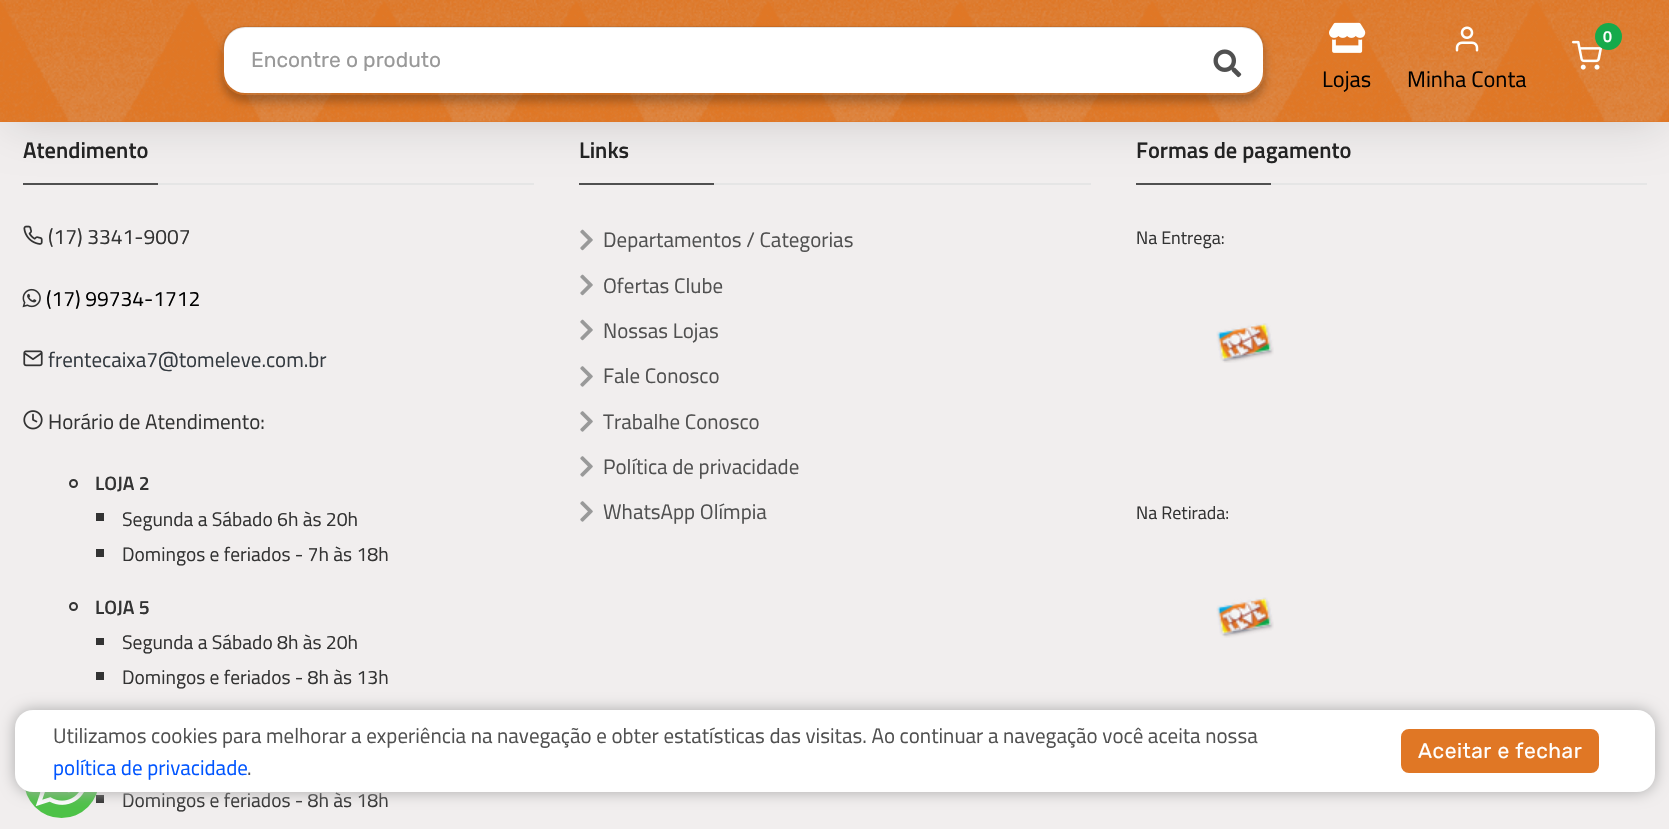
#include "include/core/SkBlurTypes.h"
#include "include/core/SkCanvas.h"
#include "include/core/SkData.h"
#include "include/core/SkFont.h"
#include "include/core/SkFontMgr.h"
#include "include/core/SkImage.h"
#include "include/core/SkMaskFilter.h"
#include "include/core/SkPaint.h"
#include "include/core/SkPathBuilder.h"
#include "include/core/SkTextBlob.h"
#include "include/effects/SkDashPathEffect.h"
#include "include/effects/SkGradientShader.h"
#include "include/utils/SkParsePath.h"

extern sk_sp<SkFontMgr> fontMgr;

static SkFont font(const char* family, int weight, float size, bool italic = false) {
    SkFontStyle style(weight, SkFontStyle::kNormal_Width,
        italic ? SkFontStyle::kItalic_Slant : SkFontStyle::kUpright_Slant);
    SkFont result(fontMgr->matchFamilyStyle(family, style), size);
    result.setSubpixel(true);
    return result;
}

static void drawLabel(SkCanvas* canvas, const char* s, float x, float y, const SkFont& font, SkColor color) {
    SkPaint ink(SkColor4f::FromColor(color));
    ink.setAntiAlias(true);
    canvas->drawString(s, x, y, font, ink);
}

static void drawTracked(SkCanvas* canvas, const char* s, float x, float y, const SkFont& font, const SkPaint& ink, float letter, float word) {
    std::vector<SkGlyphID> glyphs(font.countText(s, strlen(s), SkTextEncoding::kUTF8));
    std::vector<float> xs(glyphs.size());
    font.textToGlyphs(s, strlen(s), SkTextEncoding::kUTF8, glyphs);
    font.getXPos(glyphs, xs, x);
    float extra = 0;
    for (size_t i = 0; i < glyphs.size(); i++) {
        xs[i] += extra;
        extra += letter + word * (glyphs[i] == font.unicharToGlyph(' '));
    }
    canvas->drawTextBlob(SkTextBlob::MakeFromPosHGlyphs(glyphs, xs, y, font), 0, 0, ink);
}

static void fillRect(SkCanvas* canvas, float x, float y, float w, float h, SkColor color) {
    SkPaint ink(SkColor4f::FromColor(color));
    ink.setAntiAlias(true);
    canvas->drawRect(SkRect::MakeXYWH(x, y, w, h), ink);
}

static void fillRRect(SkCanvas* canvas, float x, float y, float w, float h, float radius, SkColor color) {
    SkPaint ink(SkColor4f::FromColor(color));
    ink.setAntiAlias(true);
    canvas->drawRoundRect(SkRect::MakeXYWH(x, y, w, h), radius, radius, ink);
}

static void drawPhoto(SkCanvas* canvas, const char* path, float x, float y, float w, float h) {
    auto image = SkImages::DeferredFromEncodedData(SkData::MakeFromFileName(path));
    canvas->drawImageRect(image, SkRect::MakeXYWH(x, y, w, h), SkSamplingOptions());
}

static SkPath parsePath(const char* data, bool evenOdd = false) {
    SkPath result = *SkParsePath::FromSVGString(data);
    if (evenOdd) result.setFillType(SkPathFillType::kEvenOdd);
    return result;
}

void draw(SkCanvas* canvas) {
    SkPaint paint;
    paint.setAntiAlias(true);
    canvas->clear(0xFFF1EEEE);
    fillRect(canvas, 158, 183, 376, 2, 0xFFE5E5E5);
    fillRect(canvas, 23, 183, 135, 2, 0xFF505050);
    fillRect(canvas, 714, 183, 377, 2, 0xFFE5E5E5);
    fillRect(canvas, 579, 183, 135, 2, 0xFF505050);
    fillRect(canvas, 1271, 183, 376, 2, 0xFFE5E5E5);
    fillRect(canvas, 1136, 183, 135, 2, 0xFF505050);
    paint.setColor(0x26000000);
    paint.setMaskFilter(SkMaskFilter::MakeBlur(kNormal_SkBlurStyle, 22.5f));
    canvas->drawRect(SkRect::MakeXYWH(9, 20, 1652, 103), paint);
    paint.setMaskFilter(nullptr);
    fillRect(canvas, 0, 0, 1669, 122, 0xFFE07725);
    drawPhoto(canvas, "assets/img1.png", 0, 0, 1669, 122);
    canvas->save();
    canvas->clipPath(parsePath("M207 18H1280V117H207ZM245 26H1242C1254.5 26 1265 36.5 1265 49V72C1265 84.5 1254.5 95 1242 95H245C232.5 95 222 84.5 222 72V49C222 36.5 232.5 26 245 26Z", true), true);
    paint.setColor(0x40000000);
    paint.setMaskFilter(SkMaskFilter::MakeBlur(kNormal_SkBlurStyle, 4.5f));
    canvas->drawRoundRect(SkRect::MakeXYWH(222, 33, 1043, 69), 23, 23, paint);
    paint.setMaskFilter(nullptr);
    canvas->restore();
    fillRRect(canvas, 224, 27, 1039, 66, 21, 0xFFFFFFFF);
    paint.setStroke(true);
    paint.setStrokeWidth(2);
    paint.setColor(0x1A000000);
    canvas->drawRoundRect(SkRect::MakeXYWH(223, 27, 1041, 67), 22, 22, paint);
    SkFont font1 = font("Rubik", 400, 21);
    drawLabel(canvas, "Encontre o produto", 251, 67, font1, 0xFF999999);
    drawPhoto(canvas, "assets/img2.png", 1213, 49, 29, 29);
    drawPhoto(canvas, "assets/img3.png", 1572, 40, 30, 30);
    paint.setStroke(false);
    paint.setColor(0xFF15AA4B);
    canvas->drawCircle(1608.5f, 36.5f, 13.5f, paint);
    SkFont font2 = font("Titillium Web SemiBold", 600, 16);
    drawLabel(canvas, "0", 1603, 42, font2, 0xFFFFFFFF);
    drawPhoto(canvas, "assets/img4.png", 1329, 22, 37, 31);
    SkFont font3 = font("Titillium Web", 400, 22.5f);
    drawLabel(canvas, "Lojas", 1322, 87, font3, 0xFF000000);
    drawPhoto(canvas, "assets/img5.png", 1455, 26, 24, 26);
    drawLabel(canvas, "Minha Conta", 1407, 87, font3, 0xFF000000);
    SkFont font4 = font("Titillium Web SemiBold", 600, 22.5f);
    drawLabel(canvas, "Atendimento", 23, 158, font4, 0xFF232323);
    drawPhoto(canvas, "assets/img6.png", 23, 225, 20, 20);
    SkFont font5 = font("Titillium Web", 400, 21);
    drawLabel(canvas, "(17) 3341-9007", 48, 244, font5, 0xFF333333);
    drawPhoto(canvas, "assets/img7.png", 22, 288, 19, 20);
    drawLabel(canvas, "(17) 99734-1712", 46, 306, font5, 0xFF000000);
    drawPhoto(canvas, "assets/img8.png", 23, 350, 20, 17);
    drawLabel(canvas, "frentecaixa7@tomeleve.com.br", 48, 367, font5, 0xFF343A40);
    drawPhoto(canvas, "assets/img9.png", 23, 410, 20, 20);
    drawLabel(canvas, "Horário de Atendimento:", 48, 429, font5, 0xFF333333);
    paint.setStroke(true);
    paint.setColor(0xFF333333);
    canvas->drawCircle(73.5f, 483.5f, 3.5f, paint);
    SkFont font6 = font("Titillium Web SemiBold", 600, 19.5f);
    drawLabel(canvas, "LOJA 2", 95, 490, font6, 0xFF333333);
    fillRect(canvas, 96, 513, 8, 8, 0xFF333333);
    SkFont font7 = font("Titillium Web", 400, 19.5f);
    drawLabel(canvas, "Segunda a Sábado 6h às 20h", 122, 526, font7, 0xFF333333);
    fillRect(canvas, 96, 549, 8, 8, 0xFF333333);
    drawLabel(canvas, "Domingos e feriados - 7h às 18h", 122, 561, font7, 0xFF333333);
    canvas->drawCircle(73.5f, 606.5f, 3.5f, paint);
    drawLabel(canvas, "LOJA 5", 95, 614, font6, 0xFF333333);
    fillRect(canvas, 96, 638, 8, 7, 0xFF333333);
    drawLabel(canvas, "Segunda a Sábado 8h às 20h", 122, 649, font7, 0xFF333333);
    fillRect(canvas, 96, 672, 8, 8, 0xFF333333);
    drawLabel(canvas, "Domingos e feriados - 8h às 13h", 122, 684, font7, 0xFF333333);
    fillRect(canvas, 96, 795, 8, 8, 0xFF333333);
    drawLabel(canvas, "Domingos e feriados - 8h às 18h", 122, 807, font7, 0xFF333333);
    drawLabel(canvas, "Links", 579, 158, font4, 0xFF232323);
    drawPhoto(canvas, "assets/img10.png", 580, 229, 13, 22);
    drawLabel(canvas, "Departamentos / Categorias", 603, 247, font5, 0xFF505050);
    drawPhoto(canvas, "assets/img10.png", 580, 274, 13, 22);
    drawLabel(canvas, "Ofertas Clube", 603, 293, font5, 0xFF505050);
    drawPhoto(canvas, "assets/img10.png", 580, 319, 13, 22);
    drawLabel(canvas, "Nossas Lojas", 603, 338, font5, 0xFF505050);
    drawPhoto(canvas, "assets/img11.png", 580, 366, 13, 21);
    drawLabel(canvas, "Fale Conosco", 603, 383, font5, 0xFF505050);
    drawPhoto(canvas, "assets/img11.png", 580, 411, 13, 21);
    drawLabel(canvas, "Trabalhe Conosco", 603, 429, font5, 0xFF505050);
    drawPhoto(canvas, "assets/img11.png", 580, 456, 13, 21);
    drawLabel(canvas, "Política de privacidade", 603, 474, font5, 0xFF505050);
    drawPhoto(canvas, "assets/img11.png", 580, 501, 13, 21);
    drawLabel(canvas, "WhatsApp Olímpia", 603, 519, font5, 0xFF505050);
    drawLabel(canvas, "Formas de pagamento", 1136, 158, font4, 0xFF232323);
    SkFont font8 = font("Titillium Web", 400, 18);
    drawLabel(canvas, "Na Entrega:", 1136, 244, font8, 0xFF333333);
    drawPhoto(canvas, "assets/img12.png", 1216, 323, 58, 40);
    drawLabel(canvas, "Na Retirada:", 1136, 519, font8, 0xFF333333);
    drawPhoto(canvas, "assets/img13.png", 1216, 597, 58, 41);
    paint.setStroke(false);
    paint.setColor(0xFF4DC247);
    canvas->drawCircle(61.5f, 780.5f, 37.5f, paint);
    drawPhoto(canvas, "assets/img14.png", 35, 792, 49, 15);
    paint.setColor(0xFFAAAAAA);
    paint.setMaskFilter(SkMaskFilter::MakeBlur(kNormal_SkBlurStyle, 7.5f));
    canvas->drawRoundRect(SkRect::MakeXYWH(15, 710, 1640, 82), 18, 18, paint);
    paint.setMaskFilter(nullptr);
    fillRRect(canvas, 15, 710, 1640, 82, 18, 0xFFFFFFFF);
    drawLabel(canvas, "Utilizamos cookies para melhorar a experiência na navegação e obter estatísticas das visitas. Ao continuar a navegação você aceita nossa", 53, 743, font5, 0xFF505050);
    drawLabel(canvas, "política de privacidade", 53, 775, font5, 0xFF0055FF);
    drawLabel(canvas, ".", 247, 775, font5, 0xFF505050);
    paint.setColor(0xFFE07725);
    canvas->drawRoundRect(SkRect::MakeXYWH(1402, 730, 196, 42), 7, 7, paint);
    paint.setStroke(true);
    canvas->drawRoundRect(SkRect::MakeXYWH(1402, 730, 196, 42), 7, 7, paint);
    paint.setStroke(false);
    paint.setColor(0xFFFFFFFF);
    drawTracked(canvas, "Aceitar e fechar", 1418, 758, font1, paint, 0.5f, 0);
}
